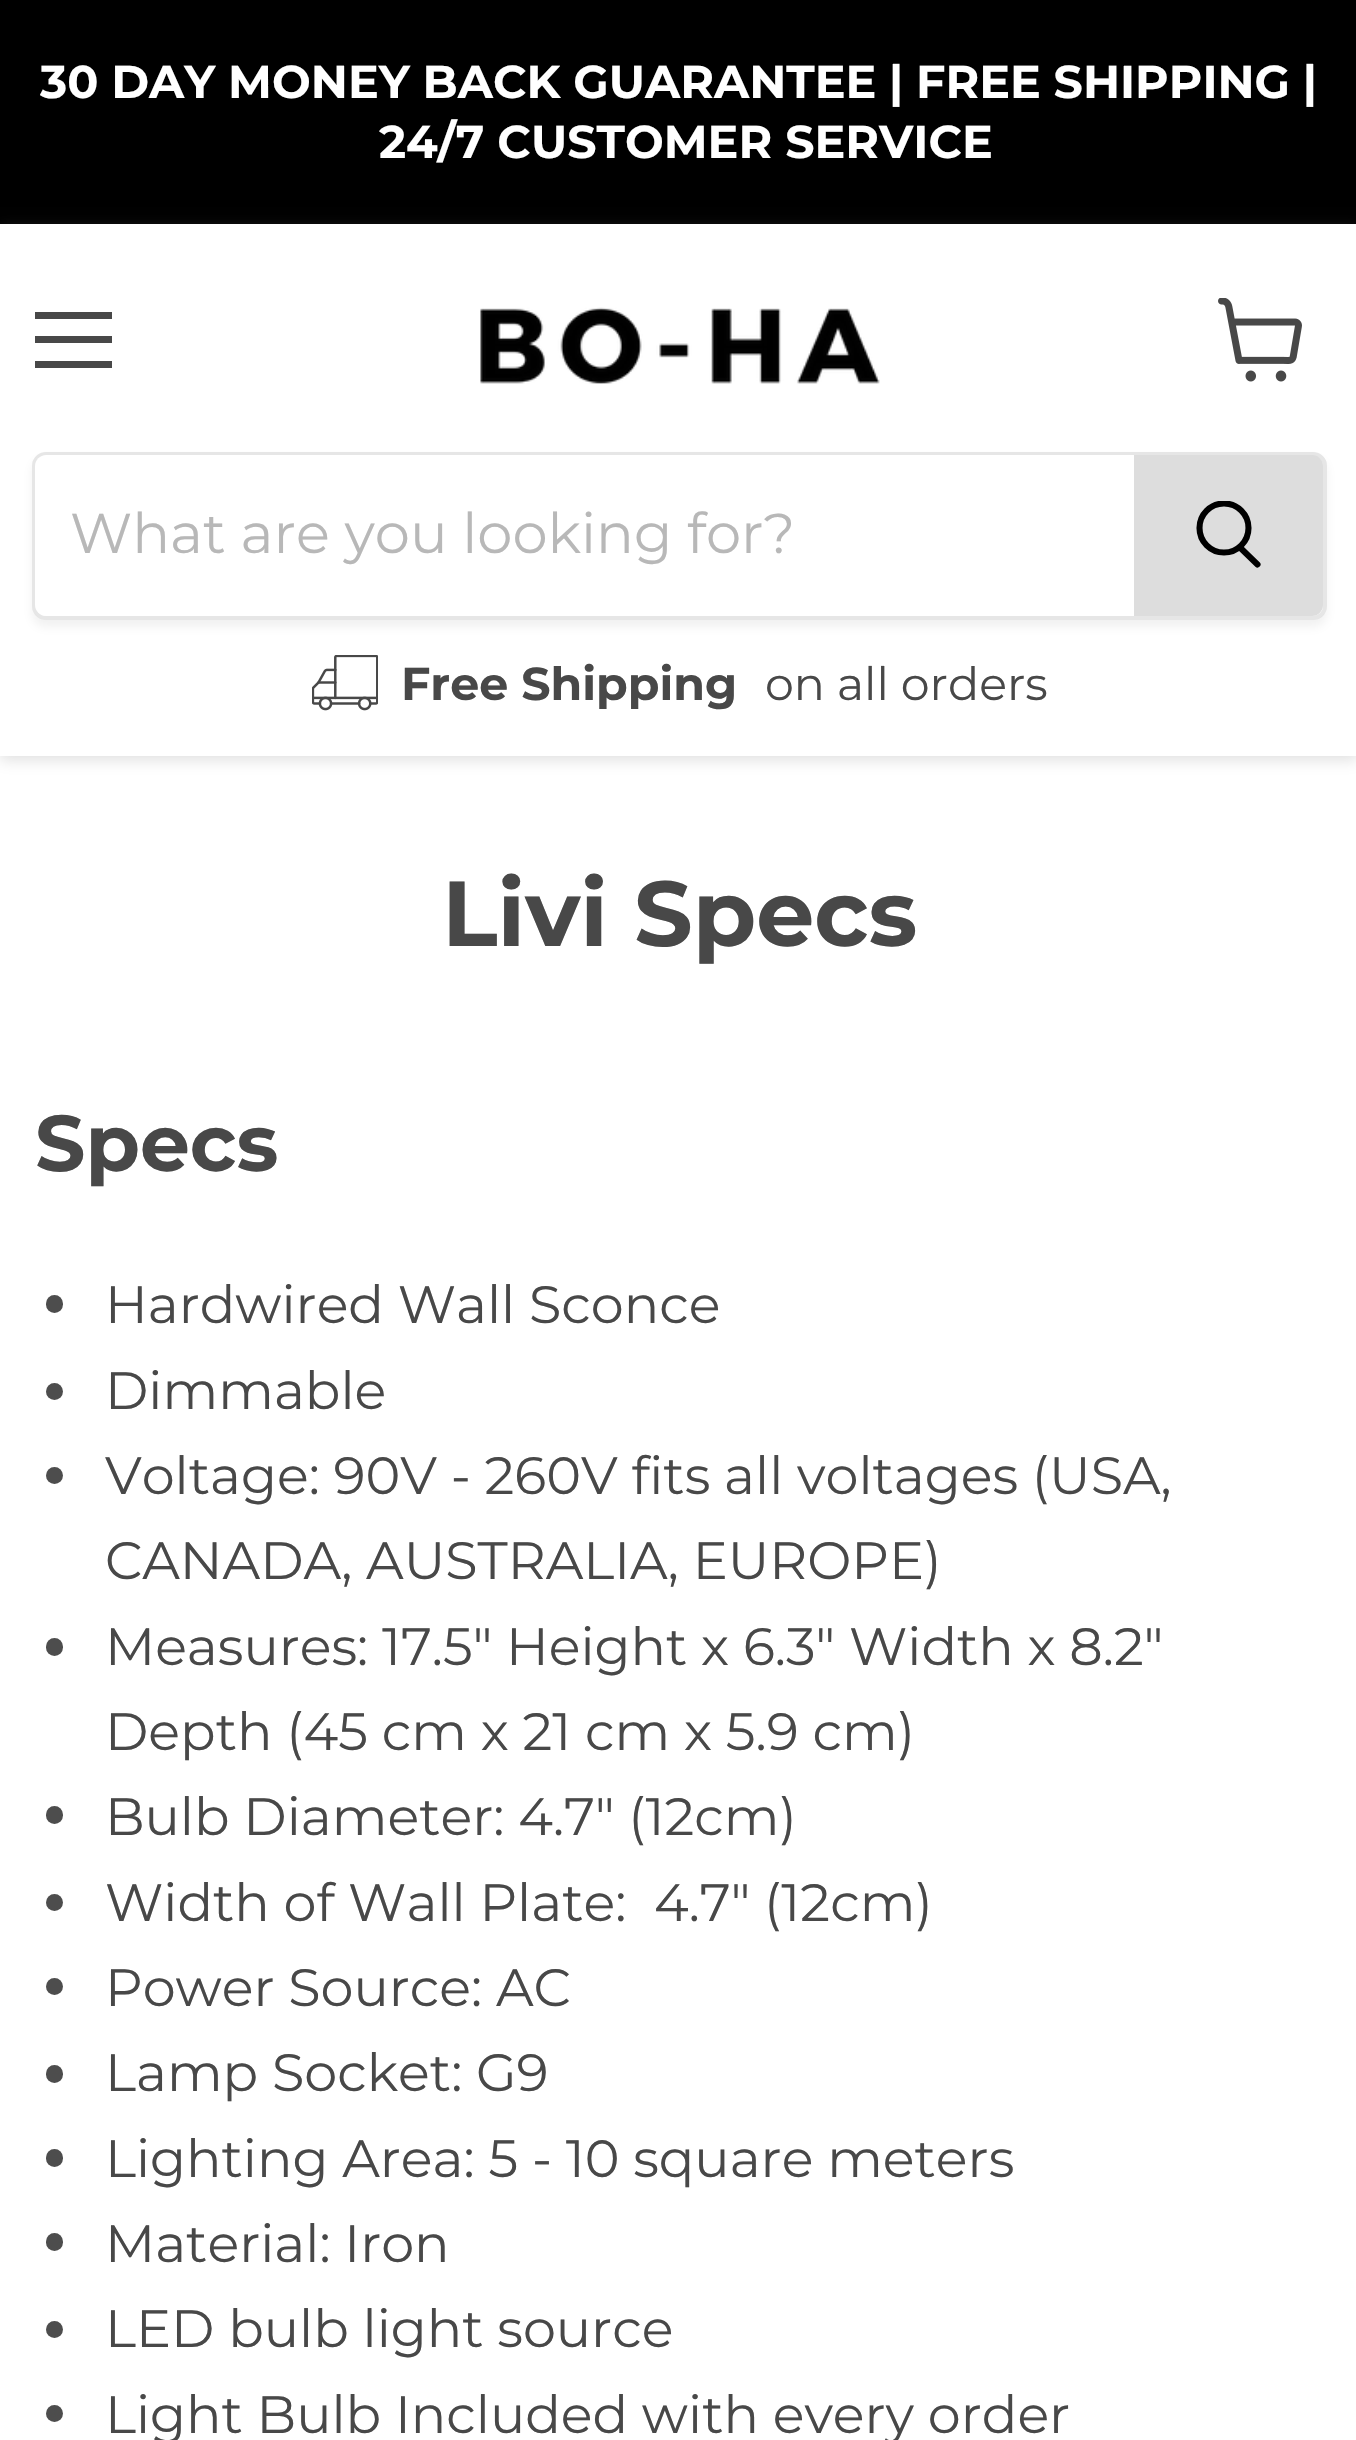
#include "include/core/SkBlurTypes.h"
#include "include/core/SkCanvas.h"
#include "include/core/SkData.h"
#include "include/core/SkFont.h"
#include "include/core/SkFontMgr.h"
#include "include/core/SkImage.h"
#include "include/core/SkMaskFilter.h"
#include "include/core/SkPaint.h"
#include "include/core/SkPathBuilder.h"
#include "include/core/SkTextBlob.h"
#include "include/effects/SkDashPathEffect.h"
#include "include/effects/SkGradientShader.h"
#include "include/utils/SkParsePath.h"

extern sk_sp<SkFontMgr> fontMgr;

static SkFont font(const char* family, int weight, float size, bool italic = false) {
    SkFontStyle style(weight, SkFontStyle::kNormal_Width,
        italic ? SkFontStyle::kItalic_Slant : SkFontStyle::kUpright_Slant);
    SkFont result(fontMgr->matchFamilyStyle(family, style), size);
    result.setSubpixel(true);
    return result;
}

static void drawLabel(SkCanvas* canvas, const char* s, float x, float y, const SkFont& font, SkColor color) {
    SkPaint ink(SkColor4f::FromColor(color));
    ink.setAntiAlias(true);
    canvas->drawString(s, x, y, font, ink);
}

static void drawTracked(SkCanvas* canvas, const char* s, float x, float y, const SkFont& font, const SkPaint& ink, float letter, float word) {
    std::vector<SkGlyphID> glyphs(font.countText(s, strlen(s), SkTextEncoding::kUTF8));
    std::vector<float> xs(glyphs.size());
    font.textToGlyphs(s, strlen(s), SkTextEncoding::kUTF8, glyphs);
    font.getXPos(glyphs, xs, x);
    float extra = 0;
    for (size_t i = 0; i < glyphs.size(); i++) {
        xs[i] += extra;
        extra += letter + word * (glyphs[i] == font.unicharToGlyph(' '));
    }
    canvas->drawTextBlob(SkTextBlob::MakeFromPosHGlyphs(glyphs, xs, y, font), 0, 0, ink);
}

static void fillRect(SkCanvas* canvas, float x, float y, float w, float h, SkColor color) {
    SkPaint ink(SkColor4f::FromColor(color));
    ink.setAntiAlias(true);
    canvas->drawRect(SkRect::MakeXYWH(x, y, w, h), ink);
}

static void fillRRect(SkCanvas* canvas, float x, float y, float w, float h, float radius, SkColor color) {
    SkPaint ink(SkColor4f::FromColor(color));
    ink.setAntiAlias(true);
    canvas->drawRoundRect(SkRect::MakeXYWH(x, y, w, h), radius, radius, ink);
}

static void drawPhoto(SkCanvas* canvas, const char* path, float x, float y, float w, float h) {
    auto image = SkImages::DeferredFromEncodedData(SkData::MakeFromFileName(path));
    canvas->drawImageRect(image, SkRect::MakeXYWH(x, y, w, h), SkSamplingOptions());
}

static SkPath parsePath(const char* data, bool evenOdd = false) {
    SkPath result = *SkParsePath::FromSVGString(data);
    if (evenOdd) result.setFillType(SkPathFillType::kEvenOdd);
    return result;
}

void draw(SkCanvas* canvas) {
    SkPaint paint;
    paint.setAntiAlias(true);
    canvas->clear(0xFFFFFFFF);
    fillRect(canvas, 0, 0, 1356, 224, 0xFF000000);
    SkFont font1 = font("Montserrat", 700, 45.95f);
    paint.setColor(0xFFFFFFFF);
    drawTracked(canvas, "30 DAY MONEY BACK GUARANTEE | FREE SHIPPING |", 40, 98, font1, paint, 0, -0.25f);
    drawLabel(canvas, "24/7 CUSTOMER SERVICE", 379, 158, font1, 0xFFFFFFFF);
    canvas->save();
    canvas->clipPath(parsePath("M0 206H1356V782H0ZM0 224H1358V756H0Z", true), true);
    paint.setColor(0x40808080);
    paint.setMaskFilter(SkMaskFilter::MakeBlur(kNormal_SkBlurStyle, 7));
    canvas->drawRect(SkRect::MakeXYWH(0, 228, 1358, 532), paint);
    paint.setMaskFilter(nullptr);
    canvas->restore();
    fillRect(canvas, 35, 312, 77, 7, 0xFF484848);
    fillRect(canvas, 35, 336, 77, 7, 0xFF484848);
    fillRect(canvas, 35, 361, 77, 7, 0xFF484848);
    drawPhoto(canvas, "assets/img1.png", 1218, 298, 84, 84);
    drawPhoto(canvas, "assets/img2.png", 480, 307, 400, 77);
    canvas->save();
    canvas->clipPath(parsePath("M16 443H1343V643H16ZM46 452H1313C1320.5 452 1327 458.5 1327 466V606C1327 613.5 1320.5 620 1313 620H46C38.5 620 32 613.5 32 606V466C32 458.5 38.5 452 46 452Z", true), true);
    paint.setColor(0x1C808080);
    paint.setMaskFilter(SkMaskFilter::MakeBlur(kNormal_SkBlurStyle, 5));
    canvas->drawRoundRect(SkRect::MakeXYWH(32, 459, 1295, 168), 14, 14, paint);
    paint.setMaskFilter(nullptr);
    canvas->restore();
    paint.setStroke(true);
    paint.setStrokeWidth(4);
    paint.setColor(0x33808080);
    canvas->drawRoundRect(SkRect::MakeXYWH(34, 454, 1291, 164), 12, 12, paint);
    paint.setStroke(false);
    paint.setColor(0xFFFFFFFF);
    canvas->drawPath(parsePath("M46 455H1134V616H46C40 616 35 611 35 605V466C35 460 40 455 46 455Z"), paint);
    SkFont font2 = font("Montserrat", 400, 56);
    drawLabel(canvas, "What are you looking for?", 70, 553, font2, 0xFFB8B8B8);
    paint.setColor(0xFFDDDDDD);
    canvas->drawPath(parsePath("M1136 457H1312C1317 457 1321 461 1321 466V605C1321 610 1317 614 1312 614H1136Z"), paint);
    paint.setStroke(true);
    canvas->drawPath(parsePath("M1136 457H1312C1317 457 1321 461 1321 466V605C1321 610 1317 614 1312 614H1136Z"), paint);
    paint.setStrokeWidth(6.1f);
    paint.setStrokeCap(SkPaint::kRound_Cap);
    paint.setColor(0xFF000000);
    canvas->drawPath(parsePath("M1257.5 564.5L1240.5 548"), paint);
    canvas->save();
    canvas->clipRect(SkRect::MakeXYWH(1194, 501, 70, 73));
    paint.setStrokeCap(SkPaint::kButt_Cap);
    canvas->drawCircle(1224, 528, 24.5f, paint);
    canvas->restore();
    drawPhoto(canvas, "assets/img3.png", 312, 655, 66, 56);
    drawLabel(canvas, "Free Shipping", 401, 700, font1, 0xFF484848);
    SkFont font3 = font("Montserrat", 400, 45.95f);
    drawLabel(canvas, "on all orders", 765, 700, font3, 0xFF484848);
    SkFont font4 = font("Montserrat", 700, 92);
    drawLabel(canvas, "Livi Specs", 442, 946, font4, 0xFF484848);
    SkFont font5 = font("Montserrat", 700, 79);
    drawLabel(canvas, "Specs", 35, 1171, font5, 0xFF484848);
    fillRRect(canvas, 46, 1295, 17, 18, 8.5f, 0xFF4D4D4D);
    SkFont font6 = font("Montserrat", 400, 52.5f);
    drawLabel(canvas, "Hardwired Wall Sconce", 105, 1323, font6, 0xFF484848);
    paint.setStroke(false);
    paint.setColor(0xFF4D4D4D);
    canvas->drawCircle(54.5f, 1391.5f, 8.5f, paint);
    drawLabel(canvas, "Dimmable", 105, 1409, font6, 0xFF484848);
    canvas->drawCircle(54.5f, 1475.5f, 8.5f, paint);
    drawLabel(canvas, "Voltage: 90V - 260V fits all voltages (USA,", 105, 1494, font6, 0xFF484848);
    drawLabel(canvas, "CANADA, AUSTRALIA, EUROPE)", 105, 1579, font6, 0xFF484848);
    fillRRect(canvas, 46, 1638, 17, 18, 8.5f, 0xFF4D4D4D);
    drawLabel(canvas, "Measures: 17.5\" Height x 6.3\" Width x 8.2\"", 105, 1665, font6, 0xFF484848);
    drawLabel(canvas, "Depth (45 cm x 21 cm x 5.9 cm)", 105, 1750, font6, 0xFF484848);
    fillRRect(canvas, 46, 1806, 17, 18, 8.5f, 0xFF4D4D4D);
    drawLabel(canvas, "Bulb Diameter: 4.7\" (12cm)", 105, 1835, font6, 0xFF484848);
    canvas->drawCircle(54.5f, 1902.5f, 8.5f, paint);
    drawLabel(canvas, "Width of Wall Plate:", 105, 1921, font6, 0xFF484848);
    drawLabel(canvas, "4.7\" (12cm)", 654, 1921, font6, 0xFF484848);
    canvas->drawCircle(54.5f, 1986.5f, 8.5f, paint);
    drawLabel(canvas, "Power Source: AC", 105, 2006, font6, 0xFF484848);
    fillRRect(canvas, 46, 2065, 17, 18, 8.5f, 0xFF4D4D4D);
    drawLabel(canvas, "Lamp Socket: G9", 105, 2091, font6, 0xFF484848);
    fillRRect(canvas, 46, 2149, 17, 18, 8.5f, 0xFF4D4D4D);
    drawLabel(canvas, "Lighting Area: 5 - 10 square meters", 105, 2177, font6, 0xFF484848);
    fillRRect(canvas, 46, 2233, 17, 18, 8.5f, 0xFF4D4D4D);
    drawLabel(canvas, "Material: Iron", 105, 2262, font6, 0xFF484848);
    canvas->drawCircle(54.5f, 2329.5f, 8.5f, paint);
    drawLabel(canvas, "LED bulb light source", 105, 2347, font6, 0xFF484848);
    canvas->drawCircle(54.5f, 2413.5f, 8.5f, paint);
    drawLabel(canvas, "Light Bulb Included with every order", 105, 2433, font6, 0xFF484848);
}
